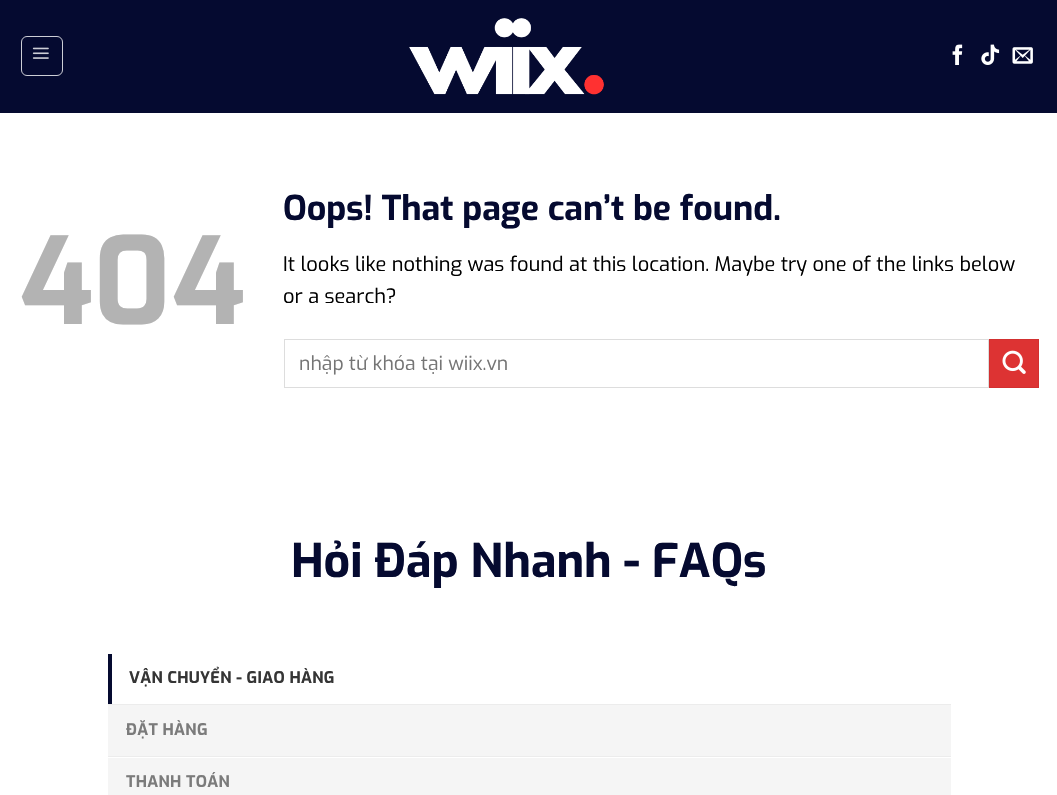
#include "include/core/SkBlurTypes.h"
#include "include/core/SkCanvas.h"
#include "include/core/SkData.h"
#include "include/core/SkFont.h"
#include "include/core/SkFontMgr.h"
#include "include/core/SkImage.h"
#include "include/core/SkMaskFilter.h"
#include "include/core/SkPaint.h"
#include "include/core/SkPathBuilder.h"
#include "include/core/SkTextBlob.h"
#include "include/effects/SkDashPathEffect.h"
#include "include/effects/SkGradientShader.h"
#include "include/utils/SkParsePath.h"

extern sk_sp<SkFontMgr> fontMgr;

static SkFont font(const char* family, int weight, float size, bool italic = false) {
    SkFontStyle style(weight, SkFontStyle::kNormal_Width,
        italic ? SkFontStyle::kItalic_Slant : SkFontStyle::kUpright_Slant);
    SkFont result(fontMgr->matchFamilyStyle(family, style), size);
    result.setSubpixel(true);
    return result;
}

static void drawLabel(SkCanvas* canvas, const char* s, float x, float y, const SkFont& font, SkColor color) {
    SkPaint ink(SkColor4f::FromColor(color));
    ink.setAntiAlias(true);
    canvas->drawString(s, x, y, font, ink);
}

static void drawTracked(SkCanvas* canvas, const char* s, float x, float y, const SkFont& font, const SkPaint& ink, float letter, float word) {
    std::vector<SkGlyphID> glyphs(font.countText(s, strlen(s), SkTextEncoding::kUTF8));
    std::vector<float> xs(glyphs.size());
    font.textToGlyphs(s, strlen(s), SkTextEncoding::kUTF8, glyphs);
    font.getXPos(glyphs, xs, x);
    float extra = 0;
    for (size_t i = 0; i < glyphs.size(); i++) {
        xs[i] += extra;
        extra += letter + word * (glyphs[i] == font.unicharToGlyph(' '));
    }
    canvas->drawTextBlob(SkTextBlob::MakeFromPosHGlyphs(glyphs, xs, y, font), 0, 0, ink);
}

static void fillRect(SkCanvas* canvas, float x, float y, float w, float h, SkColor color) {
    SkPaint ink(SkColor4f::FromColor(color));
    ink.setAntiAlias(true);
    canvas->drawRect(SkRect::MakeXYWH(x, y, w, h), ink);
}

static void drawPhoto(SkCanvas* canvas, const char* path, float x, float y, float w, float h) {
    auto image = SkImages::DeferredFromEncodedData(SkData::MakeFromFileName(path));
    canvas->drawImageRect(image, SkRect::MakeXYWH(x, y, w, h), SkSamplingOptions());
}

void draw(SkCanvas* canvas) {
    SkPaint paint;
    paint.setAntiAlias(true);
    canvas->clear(0xFFFFFFFF);
    fillRect(canvas, 0, 0, 1057, 113, 0xFF050A30);
    paint.setStroke(true);
    paint.setStrokeWidth(1);
    paint.setColor(0xFFCDCED6);
    canvas->drawRoundRect(SkRect::MakeXYWH(21.5f, 36.5f, 41, 39), 5.5f, 5.5f, paint);
    drawPhoto(canvas, "assets/img1.png", 32, 47, 17, 12);
    drawPhoto(canvas, "assets/img2.png", 409, 18, 195, 77);
    drawPhoto(canvas, "assets/img3.png", 952, 44, 11, 21);
    drawPhoto(canvas, "assets/img4.png", 981, 44, 19, 21);
    drawPhoto(canvas, "assets/img5.png", 1012, 47, 21, 17);
    SkFont font1 = font("Exo", 700, 120);
    drawLabel(canvas, "404", 19, 324, font1, 0xFFB3B3B3);
    SkFont font2 = font("Exo", 700, 34);
    drawLabel(canvas, "Oops! That page can’t be found.", 283, 220, font2, 0xFF050A30);
    SkFont font3 = font("Exo", 400, 20);
    drawLabel(canvas, "It looks like nothing was found at this location. Maybe try one of the links below", 283, 271, font3, 0xFF000000);
    drawLabel(canvas, "or a search?", 283, 303, font3, 0xFF000000);
    paint.setColor(0xFFDDDDDD);
    canvas->drawRect(SkRect::MakeXYWH(284.5f, 339.5f, 704, 48), paint);
    SkFont font4 = font("Exo", 400, 19.4f);
    drawLabel(canvas, "nhập từ khóa tại wiix.vn", 299, 370, font4, 0xFF757575);
    paint.setStroke(false);
    paint.setColor(0xFFDD3333);
    canvas->drawRect(SkRect::MakeXYWH(989.5f, 339.5f, 49, 48), paint);
    paint.setStroke(true);
    paint.setColor(0xFFD23030);
    canvas->drawRect(SkRect::MakeXYWH(989.5f, 339.5f, 49, 48), paint);
    drawPhoto(canvas, "assets/img6.png", 1002, 350, 24, 24);
    SkFont font5 = font("Exo", 700, 46.4f);
    drawLabel(canvas, "Hỏi Đáp Nhanh - FAQs", 291, 577, font5, 0xFF050A30);
    fillRect(canvas, 108, 654, 4, 50, 0xFF050A30);
    SkFont font6 = font("Exo", 700, 16);
    paint.setStroke(false);
    paint.setColor(0xFF353535);
    drawTracked(canvas, "VẬN CHUYỂN - GIAO HÀNG", 129, 683, font6, paint, 0.3f, 0);
    fillRect(canvas, 108, 704, 843, 1, 0xFFECECEC);
    fillRect(canvas, 108, 705, 843, 51, 0xFFF5F5F5);
    paint.setColor(0xFF7B7B7B);
    drawTracked(canvas, "ĐẶT HÀNG", 126, 735, font6, paint, 0.3f, 0);
    fillRect(canvas, 108, 756, 843, 1, 0xFFECECEC);
    fillRect(canvas, 108, 758, 843, 37, 0xFFF5F5F5);
    drawTracked(canvas, "THANH TOÁN", 126, 787, font6, paint, 0.3f, 0);
}
